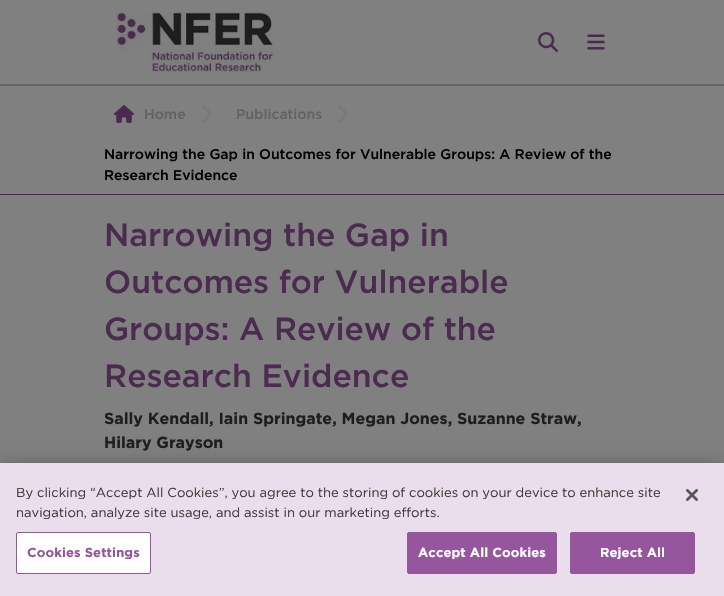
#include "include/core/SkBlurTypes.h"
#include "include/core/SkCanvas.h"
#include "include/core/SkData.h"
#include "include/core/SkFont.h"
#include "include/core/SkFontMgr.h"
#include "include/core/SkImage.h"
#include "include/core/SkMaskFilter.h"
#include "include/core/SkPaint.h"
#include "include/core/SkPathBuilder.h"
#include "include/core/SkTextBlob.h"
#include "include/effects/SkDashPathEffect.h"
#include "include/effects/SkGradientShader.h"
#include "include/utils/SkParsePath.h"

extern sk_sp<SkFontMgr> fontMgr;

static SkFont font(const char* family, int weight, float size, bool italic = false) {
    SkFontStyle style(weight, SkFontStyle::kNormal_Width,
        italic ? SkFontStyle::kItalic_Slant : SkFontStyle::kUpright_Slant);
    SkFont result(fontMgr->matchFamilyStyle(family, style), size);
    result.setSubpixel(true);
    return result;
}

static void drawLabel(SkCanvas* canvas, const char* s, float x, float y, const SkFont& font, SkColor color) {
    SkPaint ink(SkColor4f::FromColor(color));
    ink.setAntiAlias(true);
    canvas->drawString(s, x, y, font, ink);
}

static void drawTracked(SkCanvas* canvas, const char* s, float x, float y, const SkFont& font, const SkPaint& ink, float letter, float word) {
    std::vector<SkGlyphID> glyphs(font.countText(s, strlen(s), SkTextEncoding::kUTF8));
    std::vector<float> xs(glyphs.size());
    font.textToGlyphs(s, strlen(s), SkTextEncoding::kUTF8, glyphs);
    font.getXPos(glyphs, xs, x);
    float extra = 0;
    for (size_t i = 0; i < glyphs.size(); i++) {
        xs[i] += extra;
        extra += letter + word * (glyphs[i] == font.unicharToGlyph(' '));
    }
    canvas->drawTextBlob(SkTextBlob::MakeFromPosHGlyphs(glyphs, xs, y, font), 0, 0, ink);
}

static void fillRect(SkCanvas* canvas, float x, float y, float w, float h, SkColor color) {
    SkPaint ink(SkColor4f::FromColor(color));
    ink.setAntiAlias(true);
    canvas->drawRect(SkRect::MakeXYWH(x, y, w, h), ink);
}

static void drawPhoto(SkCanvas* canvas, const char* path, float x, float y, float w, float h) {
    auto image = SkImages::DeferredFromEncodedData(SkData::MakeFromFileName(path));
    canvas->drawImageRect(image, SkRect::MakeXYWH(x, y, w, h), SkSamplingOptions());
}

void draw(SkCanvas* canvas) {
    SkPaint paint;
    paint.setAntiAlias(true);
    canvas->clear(0xFF808080);
    drawPhoto(canvas, "assets/img1.png", 116, 12, 158, 60);
    drawPhoto(canvas, "assets/img2.png", 538, 32, 20, 20);
    drawPhoto(canvas, "assets/img3.png", 587, 34, 18, 16);
    fillRect(canvas, 0, 84, 724, 2, 0xFF666666);
    fillRect(canvas, 0, 194, 724, 1, 0xFF4B2B4F);
    drawPhoto(canvas, "assets/img4.png", 114, 105, 20, 18);
    SkFont font1 = font("Gotham", 500, 14);
    drawLabel(canvas, "Home", 144, 119, font1, 0xFF636262);
    drawPhoto(canvas, "assets/img5.png", 202, 105, 10, 18);
    drawLabel(canvas, "Publications", 236, 119, font1, 0xFF636262);
    drawPhoto(canvas, "assets/img5.png", 338, 105, 10, 18);
    drawLabel(canvas, "Narrowing the Gap in Outcomes for Vulnerable Groups: A Review of the", 104, 159, font1, 0xFF000000);
    drawLabel(canvas, "Research Evidence", 104, 180, font1, 0xFF000000);
    SkFont font2 = font("Gotham", 500, 32);
    drawLabel(canvas, "Narrowing the Gap in", 104, 246, font2, 0xFF4B2B4F);
    drawLabel(canvas, "Outcomes for Vulnerable", 104, 293, font2, 0xFF4B2B4F);
    drawLabel(canvas, "Groups: A Review of the", 104, 340, font2, 0xFF4B2B4F);
    drawLabel(canvas, "Research Evidence", 104, 387, font2, 0xFF4B2B4F);
    SkFont font3 = font("Gotham", 700, 16);
    drawLabel(canvas, "Sally Kendall, Iain Springate, Megan Jones, Suzanne Straw,", 104, 424, font3, 0xFF1E1E1E);
    drawLabel(canvas, "Hilary Grayson", 104, 448, font3, 0xFF1E1E1E);
    paint.setColor(0x33000000);
    paint.setMaskFilter(SkMaskFilter::MakeBlur(kNormal_SkBlurStyle, 9));
    canvas->drawRect(SkRect::MakeXYWH(0, 463, 724, 133), paint);
    paint.setMaskFilter(nullptr);
    fillRect(canvas, 0, 463, 724, 133, 0xFFEADDEC);
    SkFont font4 = font("Gotham", 400, 13);
    drawLabel(canvas, "By clicking “Accept All Cookies”, you agree to the storing of cookies on your device to enhance site", 16, 497, font4, 0xFF3C3C3B);
    drawLabel(canvas, "navigation, analyze site usage, and assist in our marketing efforts.", 16, 517, font4, 0xFF3C3C3B);
    paint.setColor(0xFFFFFFFF);
    canvas->drawRoundRect(SkRect::MakeXYWH(16.5f, 532.5f, 134, 41), 1.5f, 1.5f, paint);
    paint.setStroke(true);
    paint.setStrokeWidth(1);
    paint.setColor(0xFF95569E);
    canvas->drawRoundRect(SkRect::MakeXYWH(16.5f, 532.5f, 134, 41), 1.5f, 1.5f, paint);
    SkFont font5 = font("Gotham", 700, 13);
    paint.setStroke(false);
    drawTracked(canvas, "Cookies Settings", 27, 557, font5, paint, 0.1f, 0);
    canvas->drawRoundRect(SkRect::MakeXYWH(407.5f, 532.5f, 149, 41), 1.5f, 1.5f, paint);
    paint.setStroke(true);
    canvas->drawRoundRect(SkRect::MakeXYWH(407.5f, 532.5f, 149, 41), 1.5f, 1.5f, paint);
    paint.setStroke(false);
    paint.setColor(0xFFFFFFFF);
    drawTracked(canvas, "Accept All Cookies", 418, 557, font5, paint, 0.1f, 0);
    paint.setColor(0xFF95569E);
    canvas->drawRoundRect(SkRect::MakeXYWH(570.5f, 532.5f, 124, 41), 1.5f, 1.5f, paint);
    paint.setStroke(true);
    canvas->drawRoundRect(SkRect::MakeXYWH(570.5f, 532.5f, 124, 41), 1.5f, 1.5f, paint);
    paint.setStroke(false);
    paint.setColor(0xFFFFFFFF);
    drawTracked(canvas, "Reject All", 600, 557, font5, paint, 0.1f, 0);
    drawPhoto(canvas, "assets/img6.png", 686, 489, 12, 12);
}
